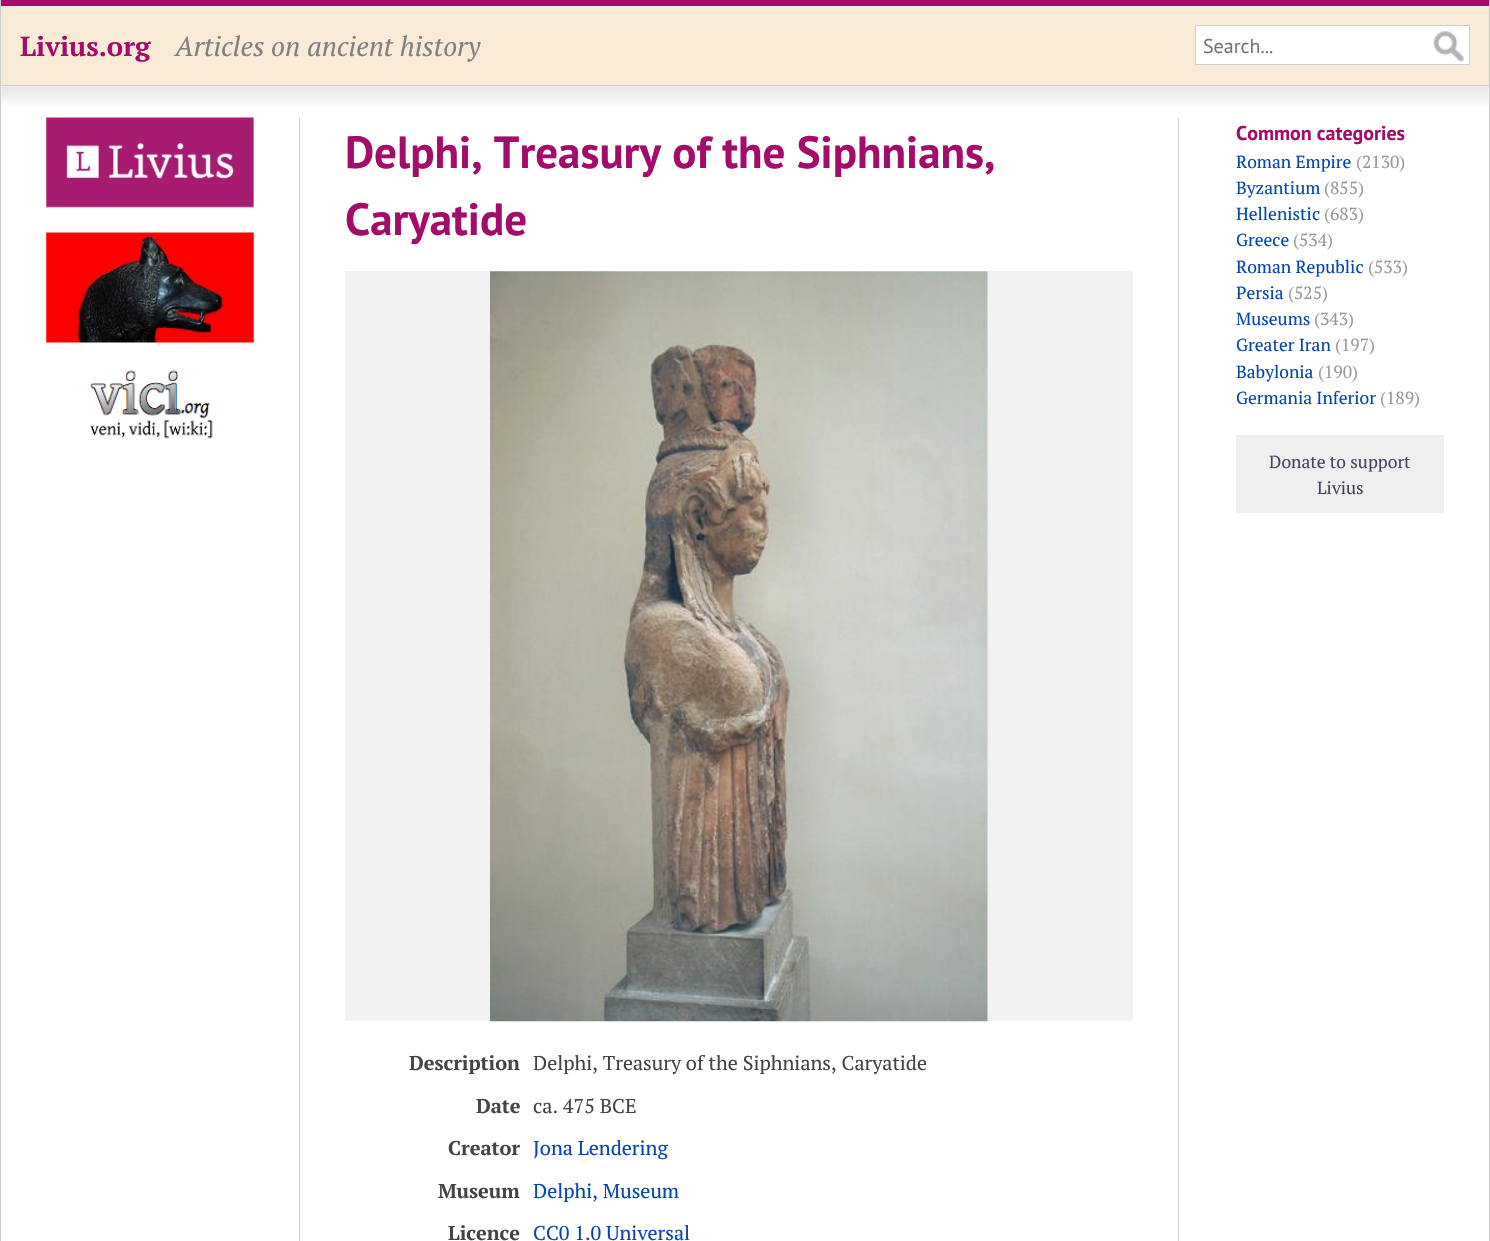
#include "include/core/SkBlurTypes.h"
#include "include/core/SkCanvas.h"
#include "include/core/SkData.h"
#include "include/core/SkFont.h"
#include "include/core/SkFontMgr.h"
#include "include/core/SkImage.h"
#include "include/core/SkMaskFilter.h"
#include "include/core/SkPaint.h"
#include "include/core/SkPathBuilder.h"
#include "include/core/SkTextBlob.h"
#include "include/effects/SkDashPathEffect.h"
#include "include/effects/SkGradientShader.h"
#include "include/utils/SkParsePath.h"

extern sk_sp<SkFontMgr> fontMgr;

static SkFont font(const char* family, int weight, float size, bool italic = false) {
    SkFontStyle style(weight, SkFontStyle::kNormal_Width,
        italic ? SkFontStyle::kItalic_Slant : SkFontStyle::kUpright_Slant);
    SkFont result(fontMgr->matchFamilyStyle(family, style), size);
    result.setSubpixel(true);
    return result;
}

static void drawLabel(SkCanvas* canvas, const char* s, float x, float y, const SkFont& font, SkColor color) {
    SkPaint ink(SkColor4f::FromColor(color));
    ink.setAntiAlias(true);
    canvas->drawString(s, x, y, font, ink);
}

static void fillRect(SkCanvas* canvas, float x, float y, float w, float h, SkColor color) {
    SkPaint ink(SkColor4f::FromColor(color));
    ink.setAntiAlias(true);
    canvas->drawRect(SkRect::MakeXYWH(x, y, w, h), ink);
}

static void drawPhoto(SkCanvas* canvas, const char* path, float x, float y, float w, float h) {
    auto image = SkImages::DeferredFromEncodedData(SkData::MakeFromFileName(path));
    canvas->drawImageRect(image, SkRect::MakeXYWH(x, y, w, h), SkSamplingOptions());
}

void draw(SkCanvas* canvas) {
    SkPaint paint;
    paint.setAntiAlias(true);
    canvas->clear(0xFFFFFFFF);
    fillRect(canvas, 1489, 0, 1, 1241, 0xFFCCCCCC);
    fillRect(canvas, 0, 0, 1, 1241, 0xFFCCCCCC);
    fillRect(canvas, 1, 6, 1488, 79, 0xFFFAEBD7);
    fillRect(canvas, 1, 0, 1488, 6, 0xFFA40C6B);
    fillRect(canvas, 1, 85, 1488, 1, 0xFFCCCCCC);
    SkFont font1 = font("PT Serif", 700, 27.5f);
    drawLabel(canvas, "Livius.org", 20, 56, font1, 0xFFA40C6B);
    SkFont font2 = font("PT Serif", 400, 27.5f, true);
    drawLabel(canvas, "Articles on ancient history", 175, 56, font2, 0xFF808080);
    fillRect(canvas, 1196, 26, 273, 38, 0xFFFFFFFF);
    drawPhoto(canvas, "assets/img1.png", 1433, 31, 31, 31);
    paint.setStroke(true);
    paint.setStrokeWidth(1);
    paint.setColor(0xFFCCCCCC);
    canvas->drawRect(SkRect::MakeXYWH(1195.5f, 25.5f, 274, 39), paint);
    SkFont font3 = font("PT Sans", 400, 20);
    drawLabel(canvas, "Search...", 1203, 53, font3, 0xFF757575);
    drawPhoto(canvas, "assets/img2.png", 1, 86, 1488, 19);
    drawPhoto(canvas, "assets/img3.png", 46, 117, 208, 91);
    drawPhoto(canvas, "assets/img4.png", 46, 232, 208, 111);
    drawPhoto(canvas, "assets/img5.png", 89, 370, 124, 69);
    fillRect(canvas, 1178, 118, 1, 1123, 0xFFCCCCCC);
    fillRect(canvas, 299, 118, 1, 1123, 0xFFCCCCCC);
    SkFont font4 = font("PT Sans", 700, 45);
    drawLabel(canvas, "Delphi, Treasury of the Siphnians,", 345, 168, font4, 0xFFA40C6B);
    drawLabel(canvas, "Caryatide", 345, 235, font4, 0xFFA40C6B);
    fillRect(canvas, 345, 271, 788, 750, 0xFFF2F2F2);
    drawPhoto(canvas, "assets/img6.png", 490, 271, 498, 751);
    SkFont font5 = font("PT Serif", 700, 20);
    drawLabel(canvas, "Description", 409, 1070, font5, 0xFF444444);
    SkFont font6 = font("PT Serif", 400, 20);
    drawLabel(canvas, "Delphi, Treasury of the Siphnians, Caryatide", 533, 1070, font6, 0xFF444444);
    drawLabel(canvas, "Date", 476, 1113, font5, 0xFF444444);
    drawLabel(canvas, "ca. 475 BCE", 533, 1113, font6, 0xFF444444);
    drawLabel(canvas, "Creator", 448, 1155, font5, 0xFF444444);
    drawLabel(canvas, "Jona Lendering", 533, 1155, font6, 0xFF0645AD);
    drawLabel(canvas, "Museum", 438, 1198, font5, 0xFF444444);
    drawLabel(canvas, "Delphi, Museum", 533, 1198, font6, 0xFF0645AD);
    drawLabel(canvas, "Licence", 448, 1240, font5, 0xFF444444);
    drawLabel(canvas, "CC0 1.0 Universal", 533, 1240, font6, 0xFF0645AD);
    SkFont font7 = font("PT Sans", 700, 20);
    drawLabel(canvas, "Common categories", 1236, 140, font7, 0xFFA40C6B);
    SkFont font8 = font("PT Serif", 400, 17.5f);
    drawLabel(canvas, "Roman Empire", 1236, 168, font8, 0xFF0645AD);
    drawLabel(canvas, "(2130)", 1356, 168, font8, 0xFF999999);
    drawLabel(canvas, "Byzantium", 1236, 194, font8, 0xFF0645AD);
    drawLabel(canvas, "(855)", 1324, 194, font8, 0xFF999999);
    drawLabel(canvas, "Hellenistic", 1236, 220, font8, 0xFF0645AD);
    drawLabel(canvas, "(683)", 1324, 220, font8, 0xFF999999);
    drawLabel(canvas, "Greece", 1236, 246, font8, 0xFF0645AD);
    drawLabel(canvas, "(534)", 1293, 246, font8, 0xFF999999);
    drawLabel(canvas, "Roman Republic", 1236, 273, font8, 0xFF0645AD);
    drawLabel(canvas, "(533)", 1368, 273, font8, 0xFF999999);
    drawLabel(canvas, "Persia", 1236, 299, font8, 0xFF0645AD);
    drawLabel(canvas, "(525)", 1288, 299, font8, 0xFF999999);
    drawLabel(canvas, "Museums", 1236, 325, font8, 0xFF0645AD);
    drawLabel(canvas, "(343)", 1314, 325, font8, 0xFF999999);
    drawLabel(canvas, "Greater Iran", 1236, 351, font8, 0xFF0645AD);
    drawLabel(canvas, "(197)", 1335, 351, font8, 0xFF999999);
    drawLabel(canvas, "Babylonia", 1236, 378, font8, 0xFF0645AD);
    drawLabel(canvas, "(190)", 1318, 378, font8, 0xFF999999);
    drawLabel(canvas, "Germania Inferior", 1236, 404, font8, 0xFF0645AD);
    drawLabel(canvas, "(189)", 1380, 404, font8, 0xFF999999);
    fillRect(canvas, 1236, 435, 208, 78, 0xFFEFEFEF);
    drawLabel(canvas, "Donate to support", 1269, 468, font8, 0xFF44445E);
    drawLabel(canvas, "Livius", 1317, 494, font8, 0xFF44445E);
}
